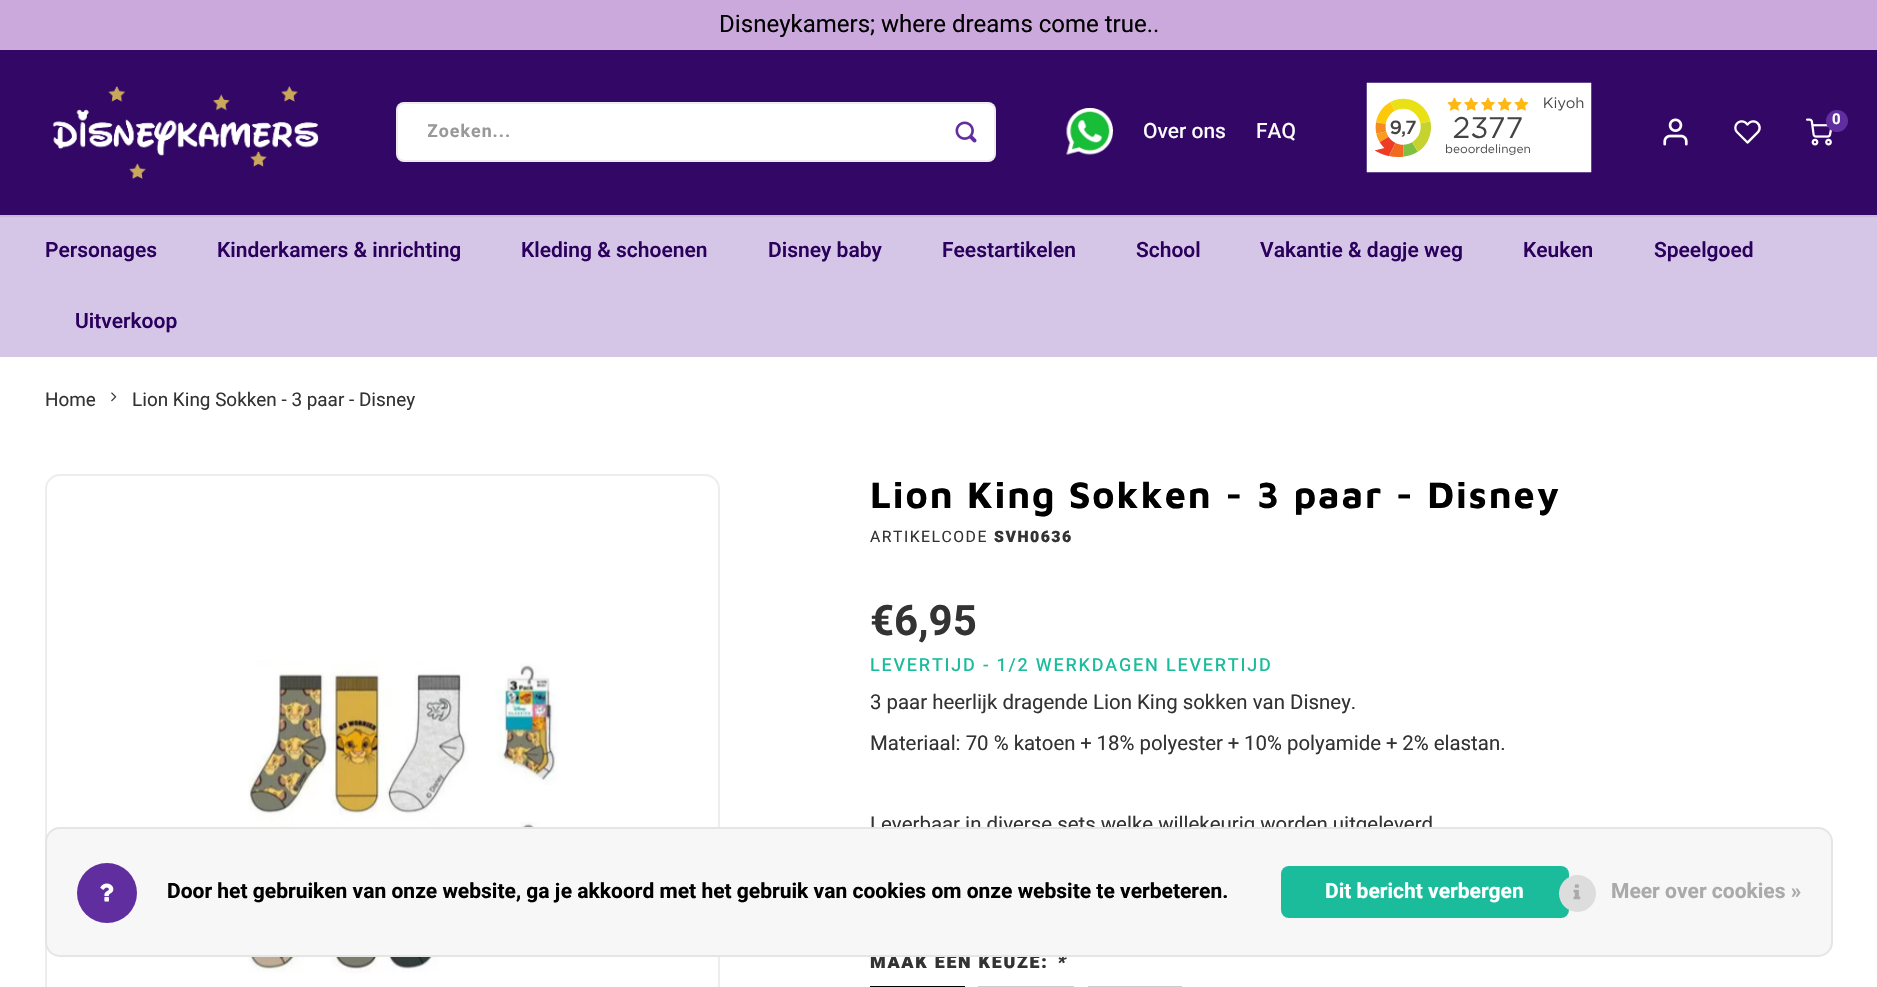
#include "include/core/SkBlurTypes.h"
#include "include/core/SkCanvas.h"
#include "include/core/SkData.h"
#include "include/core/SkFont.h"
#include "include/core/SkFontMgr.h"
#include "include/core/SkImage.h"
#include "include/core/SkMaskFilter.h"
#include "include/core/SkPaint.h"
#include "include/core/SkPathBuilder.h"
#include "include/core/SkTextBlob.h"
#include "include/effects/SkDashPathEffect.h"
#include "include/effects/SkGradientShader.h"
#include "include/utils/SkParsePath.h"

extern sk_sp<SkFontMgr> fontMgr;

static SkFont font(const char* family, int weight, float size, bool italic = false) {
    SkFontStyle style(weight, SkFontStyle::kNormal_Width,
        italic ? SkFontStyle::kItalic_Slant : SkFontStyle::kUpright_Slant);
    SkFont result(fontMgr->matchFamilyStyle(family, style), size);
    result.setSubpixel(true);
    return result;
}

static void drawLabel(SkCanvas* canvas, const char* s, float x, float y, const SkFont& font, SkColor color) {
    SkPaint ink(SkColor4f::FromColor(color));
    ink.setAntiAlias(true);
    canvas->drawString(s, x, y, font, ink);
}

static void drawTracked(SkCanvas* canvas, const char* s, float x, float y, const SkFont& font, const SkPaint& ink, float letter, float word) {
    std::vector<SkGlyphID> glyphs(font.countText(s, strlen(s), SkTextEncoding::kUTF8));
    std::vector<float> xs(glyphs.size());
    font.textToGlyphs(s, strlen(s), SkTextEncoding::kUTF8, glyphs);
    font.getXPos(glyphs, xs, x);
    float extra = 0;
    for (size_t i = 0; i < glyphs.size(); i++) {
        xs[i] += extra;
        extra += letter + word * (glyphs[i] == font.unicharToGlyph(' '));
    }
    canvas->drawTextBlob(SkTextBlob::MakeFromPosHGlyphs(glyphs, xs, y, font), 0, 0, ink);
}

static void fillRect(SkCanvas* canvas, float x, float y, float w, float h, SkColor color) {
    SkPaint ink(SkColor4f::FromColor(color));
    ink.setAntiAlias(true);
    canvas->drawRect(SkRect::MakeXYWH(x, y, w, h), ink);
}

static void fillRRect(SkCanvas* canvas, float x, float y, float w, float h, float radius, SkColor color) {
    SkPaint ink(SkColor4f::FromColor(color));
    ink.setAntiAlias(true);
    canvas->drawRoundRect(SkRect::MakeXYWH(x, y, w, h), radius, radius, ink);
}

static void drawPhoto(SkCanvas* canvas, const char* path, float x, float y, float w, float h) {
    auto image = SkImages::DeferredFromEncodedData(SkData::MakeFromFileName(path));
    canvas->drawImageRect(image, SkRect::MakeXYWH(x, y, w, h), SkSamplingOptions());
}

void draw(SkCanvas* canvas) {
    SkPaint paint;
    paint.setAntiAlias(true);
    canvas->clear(0xFFFFFFFF);
    fillRect(canvas, 0, 50, 1877, 165, 0xFF320766);
    fillRect(canvas, 0, 0, 1877, 50, 0xFFCCA9DD);
    SkFont font1 = font("Heebo", 400, 24);
    drawLabel(canvas, "Disneykamers; where dreams come true..", 719, 32, font1, 0xFF000000);
    drawPhoto(canvas, "assets/img1.png", 52, 86, 267, 93);
    drawPhoto(canvas, "assets/img2.png", 1366, 82, 226, 91);
    drawPhoto(canvas, "assets/img3.png", 1663, 118, 25, 28);
    drawPhoto(canvas, "assets/img4.png", 1734, 120, 27, 24);
    drawPhoto(canvas, "assets/img5.png", 1806, 118, 26, 28);
    paint.setColor(0xFF602E9E);
    canvas->drawCircle(1837, 121, 11, paint);
    SkFont font2 = font("Heebo", 700, 15);
    drawLabel(canvas, "0", 1832, 124, font2, 0xFFFFFFFF);
    fillRRect(canvas, 396, 102, 600, 60, 8, 0xFFFFFFFF);
    paint.setStroke(true);
    paint.setStrokeWidth(2);
    paint.setColor(0x12000000);
    canvas->drawRoundRect(SkRect::MakeXYWH(397, 103, 598, 58), 7, 7, paint);
    canvas->save();
    canvas->clipRect(SkRect::MakeXYWH(428, 119, 507, 25));
    SkFont font3 = font("Heebo", 700, 17.8f);
    paint.setStroke(false);
    paint.setColor(0xFF999999);
    drawTracked(canvas, "Zoeken...", 427, 137, font3, paint, 1, 0);
    canvas->restore();
    drawPhoto(canvas, "assets/img6.png", 955, 121, 22, 22);
    drawPhoto(canvas, "assets/img7.png", 1066, 108, 47, 47);
    SkFont font4 = font("Heebo", 500, 21);
    drawLabel(canvas, "Over ons", 1143, 138, font4, 0xFFFFFFFF);
    drawLabel(canvas, "FAQ", 1256, 138, font4, 0xFFFFFFFF);
    fillRect(canvas, 0, 217, 1877, 140, 0xFFD5C6E8);
    fillRect(canvas, 0, 215, 1877, 2, 0xFFC6B8D8);
    SkFont font5 = font("Heebo", 600, 21);
    drawLabel(canvas, "Personages", 45, 257, font5, 0xFF2B005C);
    drawLabel(canvas, "Kinderkamers & inrichting", 217, 257, font5, 0xFF2B005C);
    drawLabel(canvas, "Kleding & schoenen", 521, 257, font5, 0xFF2B005C);
    drawLabel(canvas, "Disney baby", 768, 257, font5, 0xFF2B005C);
    drawLabel(canvas, "Feestartikelen", 942, 257, font5, 0xFF2B005C);
    drawLabel(canvas, "School", 1136, 257, font5, 0xFF2B005C);
    drawLabel(canvas, "Vakantie & dagje weg", 1260, 257, font5, 0xFF2B005C);
    drawLabel(canvas, "Keuken", 1523, 257, font5, 0xFF2B005C);
    drawLabel(canvas, "Speelgoed", 1654, 257, font5, 0xFF2B005C);
    drawLabel(canvas, "Uitverkoop", 75, 328, font5, 0xFF2B005C);
    SkFont font6 = font("Heebo", 400, 18.9f);
    drawLabel(canvas, "Home", 45, 406, font6, 0xFF333333);
    drawPhoto(canvas, "assets/img8.png", 111, 392, 6, 10);
    drawLabel(canvas, "Lion King Sokken - 3 paar - Disney", 132, 406, font6, 0xFF333333);
    paint.setStroke(true);
    paint.setColor(0xFFEDEDED);
    canvas->drawRoundRect(SkRect::MakeXYWH(46, 475, 673, 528), 14, 14, paint);
    drawPhoto(canvas, "assets/img9.png", 248, 661, 310, 312);
    SkFont font7 = font("Maven Pro", 700, 37.75f);
    paint.setStroke(false);
    paint.setColor(0xFF000000);
    drawTracked(canvas, "Lion King Sokken - 3 paar - Disney", 870, 508, font7, paint, 1.9f, 0);
    SkFont font8 = font("Heebo", 400, 15.75f);
    paint.setColor(0xFF333333);
    drawTracked(canvas, "ARTIKELCODE", 870, 542, font8, paint, 1.5f, 0);
    SkFont font9 = font("Heebo", 900, 15.75f);
    drawTracked(canvas, "SVH0636", 994, 542, font9, paint, 1.5f, 0);
    SkFont font10 = font("Heebo", 700, 42);
    drawLabel(canvas, "€6,95", 870, 635, font10, 0xFF333333);
    SkFont font11 = font("Heebo", 500, 18);
    paint.setColor(0xFF1ABC9C);
    drawTracked(canvas, "LEVERTIJD - 1/2 WERKDAGEN LEVERTIJD", 870, 671, font11, paint, 1.8f, 0);
    SkFont font12 = font("Heebo", 400, 20.4f);
    drawLabel(canvas, "3 paar heerlijk dragende Lion King sokken van Disney.", 870, 709, font12, 0xFF333333);
    drawLabel(canvas, "Materiaal: 70 % katoen + 18% polyester + 10% polyamide + 2% elastan.", 870, 750, font12, 0xFF333333);
    drawLabel(canvas, "Leverbaar in diverse sets welke willekeurig worden uitgeleverd", 870, 831, font12, 0xFF333333);
    SkFont font13 = font("Heebo", 900, 17.8f);
    paint.setColor(0xFF333333);
    drawTracked(canvas, "MAAK EEN KEUZE:", 870, 968, font13, paint, 1.75f, 0);
    SkFont font14 = font("Heebo", 900, 17.8f, true);
    drawTracked(canvas, "*", 1056, 968, font14, paint, 1.75f, 0);
    paint.setStroke(true);
    paint.setColor(0xFF000000);
    canvas->drawRect(SkRect::MakeXYWH(871, 987, 93, 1), paint);
    paint.setColor(0xFFCDCDCD);
    canvas->drawRect(SkRect::MakeXYWH(979, 987, 94, 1), paint);
    canvas->drawRect(SkRect::MakeXYWH(1089, 987, 92, 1), paint);
    fillRRect(canvas, 45, 827, 1788, 130, 15, 0xFFF7F7F7);
    paint.setColor(0x12000000);
    canvas->drawRoundRect(SkRect::MakeXYWH(46, 828, 1786, 128), 14, 14, paint);
    paint.setStroke(false);
    paint.setColor(0xFF602E9E);
    canvas->drawCircle(107, 893, 30, paint);
    drawPhoto(canvas, "assets/img10.png", 100, 883, 14, 19);
    SkFont font15 = font("Heebo", 700, 21);
    drawLabel(canvas, "Door het gebruiken van onze website, ga je akkoord met het gebruik van cookies om onze website te verbeteren.", 167, 898, font15, 0xFF000000);
    fillRRect(canvas, 1281, 866, 288, 52, 8, 0xFF1ABC9C);
    drawLabel(canvas, "Dit bericht verbergen", 1325, 898, font15, 0xFFFFFFFF);
    paint.setColor(0xFFDDDDDD);
    canvas->drawCircle(1577.5f, 893.5f, 18.5f, paint);
    drawPhoto(canvas, "assets/img11.png", 1573, 884, 8, 16);
    drawLabel(canvas, "Meer over cookies »", 1611, 898, font15, 0xFFAAAAAA);
}
